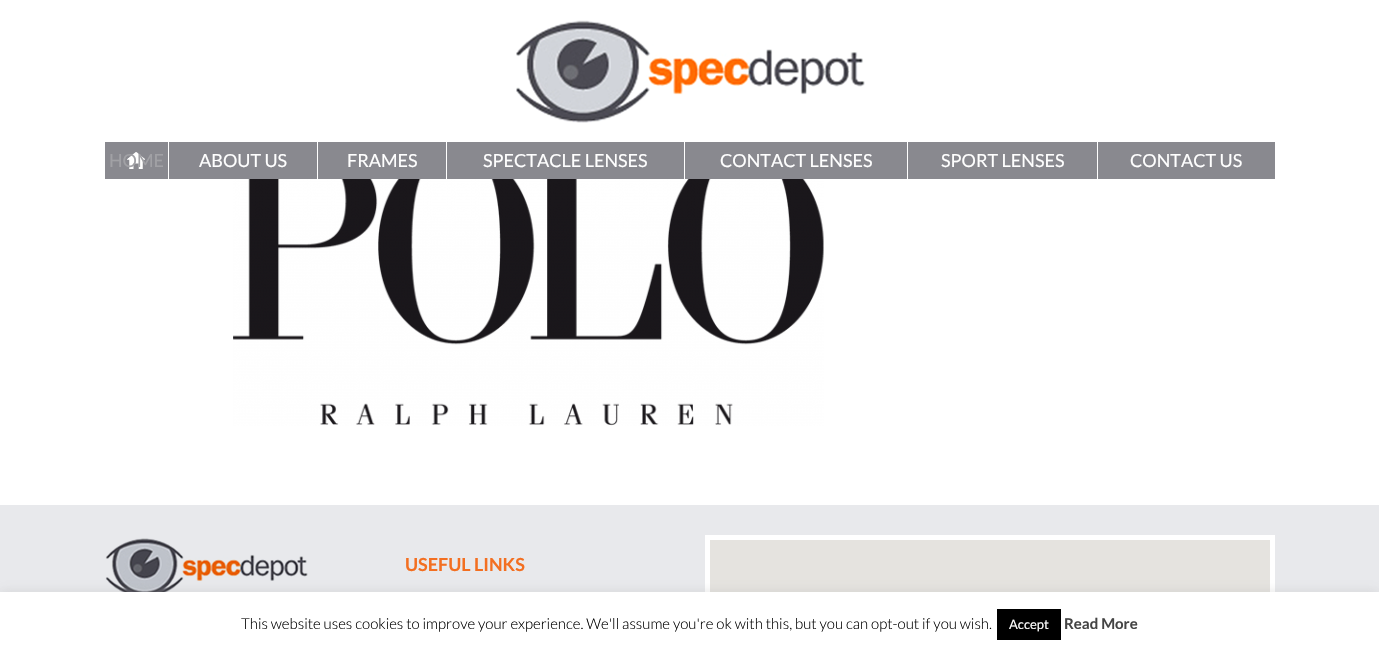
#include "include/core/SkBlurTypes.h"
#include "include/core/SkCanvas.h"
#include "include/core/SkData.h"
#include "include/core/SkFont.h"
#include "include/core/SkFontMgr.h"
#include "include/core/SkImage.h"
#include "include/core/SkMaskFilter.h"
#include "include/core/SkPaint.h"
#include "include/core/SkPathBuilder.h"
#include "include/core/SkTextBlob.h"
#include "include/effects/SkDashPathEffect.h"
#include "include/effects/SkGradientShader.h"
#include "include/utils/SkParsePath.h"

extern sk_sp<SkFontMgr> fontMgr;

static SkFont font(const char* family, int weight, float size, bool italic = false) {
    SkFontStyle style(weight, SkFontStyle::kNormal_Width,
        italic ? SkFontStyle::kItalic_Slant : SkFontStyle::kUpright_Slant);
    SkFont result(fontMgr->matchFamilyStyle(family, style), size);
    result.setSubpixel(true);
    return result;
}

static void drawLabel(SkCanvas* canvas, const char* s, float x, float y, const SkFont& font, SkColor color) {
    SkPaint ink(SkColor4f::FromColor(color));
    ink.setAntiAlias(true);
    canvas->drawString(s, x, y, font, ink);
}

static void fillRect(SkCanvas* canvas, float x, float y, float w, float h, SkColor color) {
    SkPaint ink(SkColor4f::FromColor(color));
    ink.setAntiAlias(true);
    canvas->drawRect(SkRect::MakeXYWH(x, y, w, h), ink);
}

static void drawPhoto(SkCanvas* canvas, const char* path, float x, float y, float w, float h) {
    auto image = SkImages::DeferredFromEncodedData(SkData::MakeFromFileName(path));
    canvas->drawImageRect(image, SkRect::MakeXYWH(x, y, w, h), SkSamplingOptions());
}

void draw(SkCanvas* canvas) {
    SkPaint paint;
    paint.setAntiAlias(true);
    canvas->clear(0xFFFFFFFF);
    drawPhoto(canvas, "assets/img1.png", 516, 20, 349, 103);
    fillRect(canvas, 105, 142, 63, 37, 0xFF89898F);
    drawPhoto(canvas, "assets/img2.png", 127, 152, 18, 17);
    SkFont font1 = font("Lato", 400, 18);
    drawLabel(canvas, "HOME", 109, 167, font1, 0xFFA1A1A5);
    fillRect(canvas, 169, 142, 148, 37, 0xFF89898F);
    drawLabel(canvas, "ABOUT US", 199, 167, font1, 0xFFFFFFFF);
    fillRect(canvas, 318, 142, 128, 37, 0xFF89898F);
    drawLabel(canvas, "FRAMES", 347, 167, font1, 0xFFFFFFFF);
    fillRect(canvas, 447, 142, 237, 37, 0xFF89898F);
    drawLabel(canvas, "SPECTACLE LENSES", 483, 167, font1, 0xFFFFFFFF);
    fillRect(canvas, 685, 142, 222, 37, 0xFF89898F);
    drawLabel(canvas, "CONTACT LENSES", 720, 167, font1, 0xFFFFFFFF);
    fillRect(canvas, 908, 142, 189, 37, 0xFF89898F);
    drawLabel(canvas, "SPORT LENSES", 941, 167, font1, 0xFFFFFFFF);
    fillRect(canvas, 1098, 142, 177, 37, 0xFF89898F);
    drawLabel(canvas, "CONTACT US", 1130, 167, font1, 0xFFFFFFFF);
    drawPhoto(canvas, "assets/img3.png", 233, 179, 591, 247);
    fillRect(canvas, 0, 505, 1379, 87, 0xFFE8E9EC);
    drawPhoto(canvas, "assets/img4.png", 105, 538, 203, 54);
    SkFont font2 = font("Lato", 700, 18);
    drawLabel(canvas, "USEFUL LINKS", 405, 571, font2, 0xFFF36F21);
    paint.setStroke(true);
    paint.setStrokeWidth(5);
    paint.setColor(0xFFFFFFFF);
    canvas->drawRect(SkRect::MakeXYWH(707.5f, 537.5f, 565, 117), paint);
    fillRect(canvas, 710, 540, 560, 52, 0xFFE5E3DF);
    paint.setStroke(false);
    paint.setColor(0x4DACABAB);
    paint.setMaskFilter(SkMaskFilter::MakeBlur(kNormal_SkBlurStyle, 5));
    canvas->drawRect(SkRect::MakeXYWH(0, 591, 1379, 60), paint);
    paint.setMaskFilter(nullptr);
    fillRect(canvas, 0, 592, 1379, 60, 0xFFFFFFFF);
    SkFont font3 = font("Lato", 300, 15);
    drawLabel(canvas, "This website uses cookies to improve your experience. We'll assume you're ok with this, but you can opt-out if you wish.", 241, 629, font3, 0xFF000000);
    fillRect(canvas, 997, 609, 64, 31, 0xFF000000);
    SkFont font4 = font("Lato", 400, 13);
    drawLabel(canvas, "Accept", 1009, 629, font4, 0xFFFFFFFF);
    SkFont font5 = font("Lato", 700, 15);
    drawLabel(canvas, "Read More", 1064, 629, font5, 0xFF444444);
}
